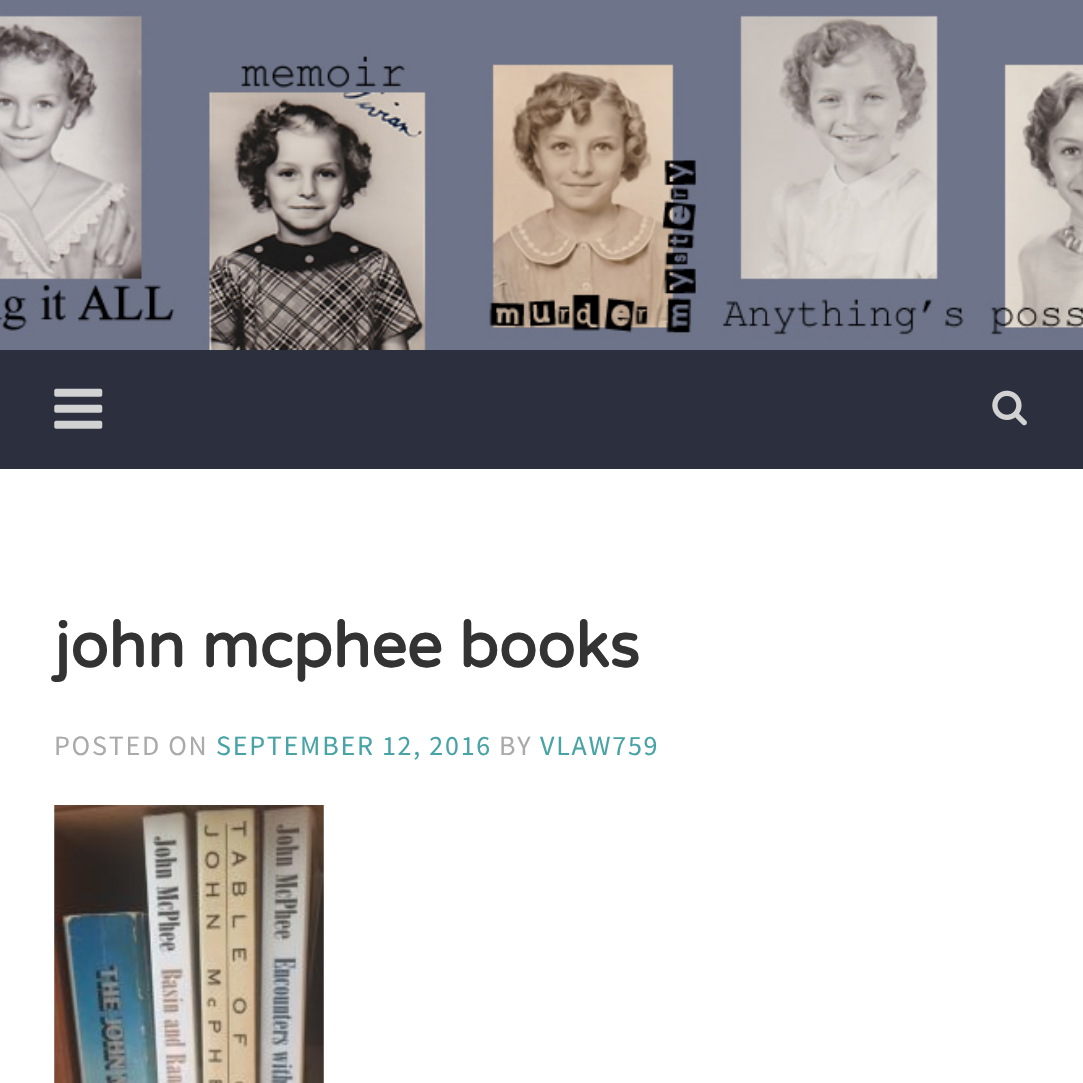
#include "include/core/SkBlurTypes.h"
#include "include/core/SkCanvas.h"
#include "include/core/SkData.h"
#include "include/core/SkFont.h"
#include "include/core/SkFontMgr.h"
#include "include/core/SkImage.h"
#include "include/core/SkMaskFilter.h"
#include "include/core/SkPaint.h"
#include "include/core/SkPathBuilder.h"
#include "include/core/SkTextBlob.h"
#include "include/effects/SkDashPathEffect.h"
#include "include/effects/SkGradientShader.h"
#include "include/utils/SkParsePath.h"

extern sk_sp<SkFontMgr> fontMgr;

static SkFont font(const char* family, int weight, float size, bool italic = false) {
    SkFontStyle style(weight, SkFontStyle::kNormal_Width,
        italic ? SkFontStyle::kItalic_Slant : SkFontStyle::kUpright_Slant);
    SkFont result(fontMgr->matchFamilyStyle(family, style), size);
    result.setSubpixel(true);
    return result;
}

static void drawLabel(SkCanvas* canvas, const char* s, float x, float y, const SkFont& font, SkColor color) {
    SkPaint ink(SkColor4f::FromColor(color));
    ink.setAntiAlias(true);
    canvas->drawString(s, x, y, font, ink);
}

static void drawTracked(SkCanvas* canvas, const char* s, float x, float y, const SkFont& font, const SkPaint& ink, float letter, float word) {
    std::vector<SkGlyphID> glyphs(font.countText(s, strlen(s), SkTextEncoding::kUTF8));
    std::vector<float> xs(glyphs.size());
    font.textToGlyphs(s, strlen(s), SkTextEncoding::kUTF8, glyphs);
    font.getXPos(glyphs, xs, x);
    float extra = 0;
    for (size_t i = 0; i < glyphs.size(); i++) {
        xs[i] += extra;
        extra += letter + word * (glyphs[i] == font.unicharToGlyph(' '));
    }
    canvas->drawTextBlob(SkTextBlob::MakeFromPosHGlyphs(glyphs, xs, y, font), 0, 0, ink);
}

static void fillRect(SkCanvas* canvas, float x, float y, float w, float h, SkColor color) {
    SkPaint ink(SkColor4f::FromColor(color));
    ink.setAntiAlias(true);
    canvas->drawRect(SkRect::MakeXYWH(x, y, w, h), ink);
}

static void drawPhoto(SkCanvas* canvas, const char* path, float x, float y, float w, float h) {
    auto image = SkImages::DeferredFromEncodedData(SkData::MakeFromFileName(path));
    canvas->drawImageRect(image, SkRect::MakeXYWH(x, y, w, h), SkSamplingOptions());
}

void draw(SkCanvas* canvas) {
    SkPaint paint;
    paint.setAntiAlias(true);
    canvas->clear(0xFFFFFFFF);
    fillRect(canvas, 0, 350, 1083, 119, 0xFF2B2F3E);
    drawPhoto(canvas, "assets/img1.png", 0, 0, 1083, 350);
    drawPhoto(canvas, "assets/img2.png", 54, 388, 49, 41);
    drawPhoto(canvas, "assets/img3.png", 992, 390, 35, 36);
    SkFont font1 = font("Varela Round", 700, 63);
    drawLabel(canvas, "john mcphee books", 54, 667, font1, 0xFF333333);
    SkFont font2 = font("Source Sans Pro", 400, 28);
    paint.setColor(0xFFAAAAAA);
    drawTracked(canvas, "POSTED ON", 54, 755, font2, paint, 1.75f, 0);
    paint.setColor(0xFF48A3A6);
    drawTracked(canvas, "SEPTEMBER 12, 2016", 216, 755, font2, paint, 1.75f, 0);
    paint.setColor(0xFFAAAAAA);
    drawTracked(canvas, "BY", 499, 755, font2, paint, 1.75f, 0);
    paint.setColor(0xFF48A3A6);
    drawTracked(canvas, "VLAW759", 540, 755, font2, paint, 1.75f, 0);
    drawPhoto(canvas, "assets/img4.png", 54, 805, 270, 278);
}
